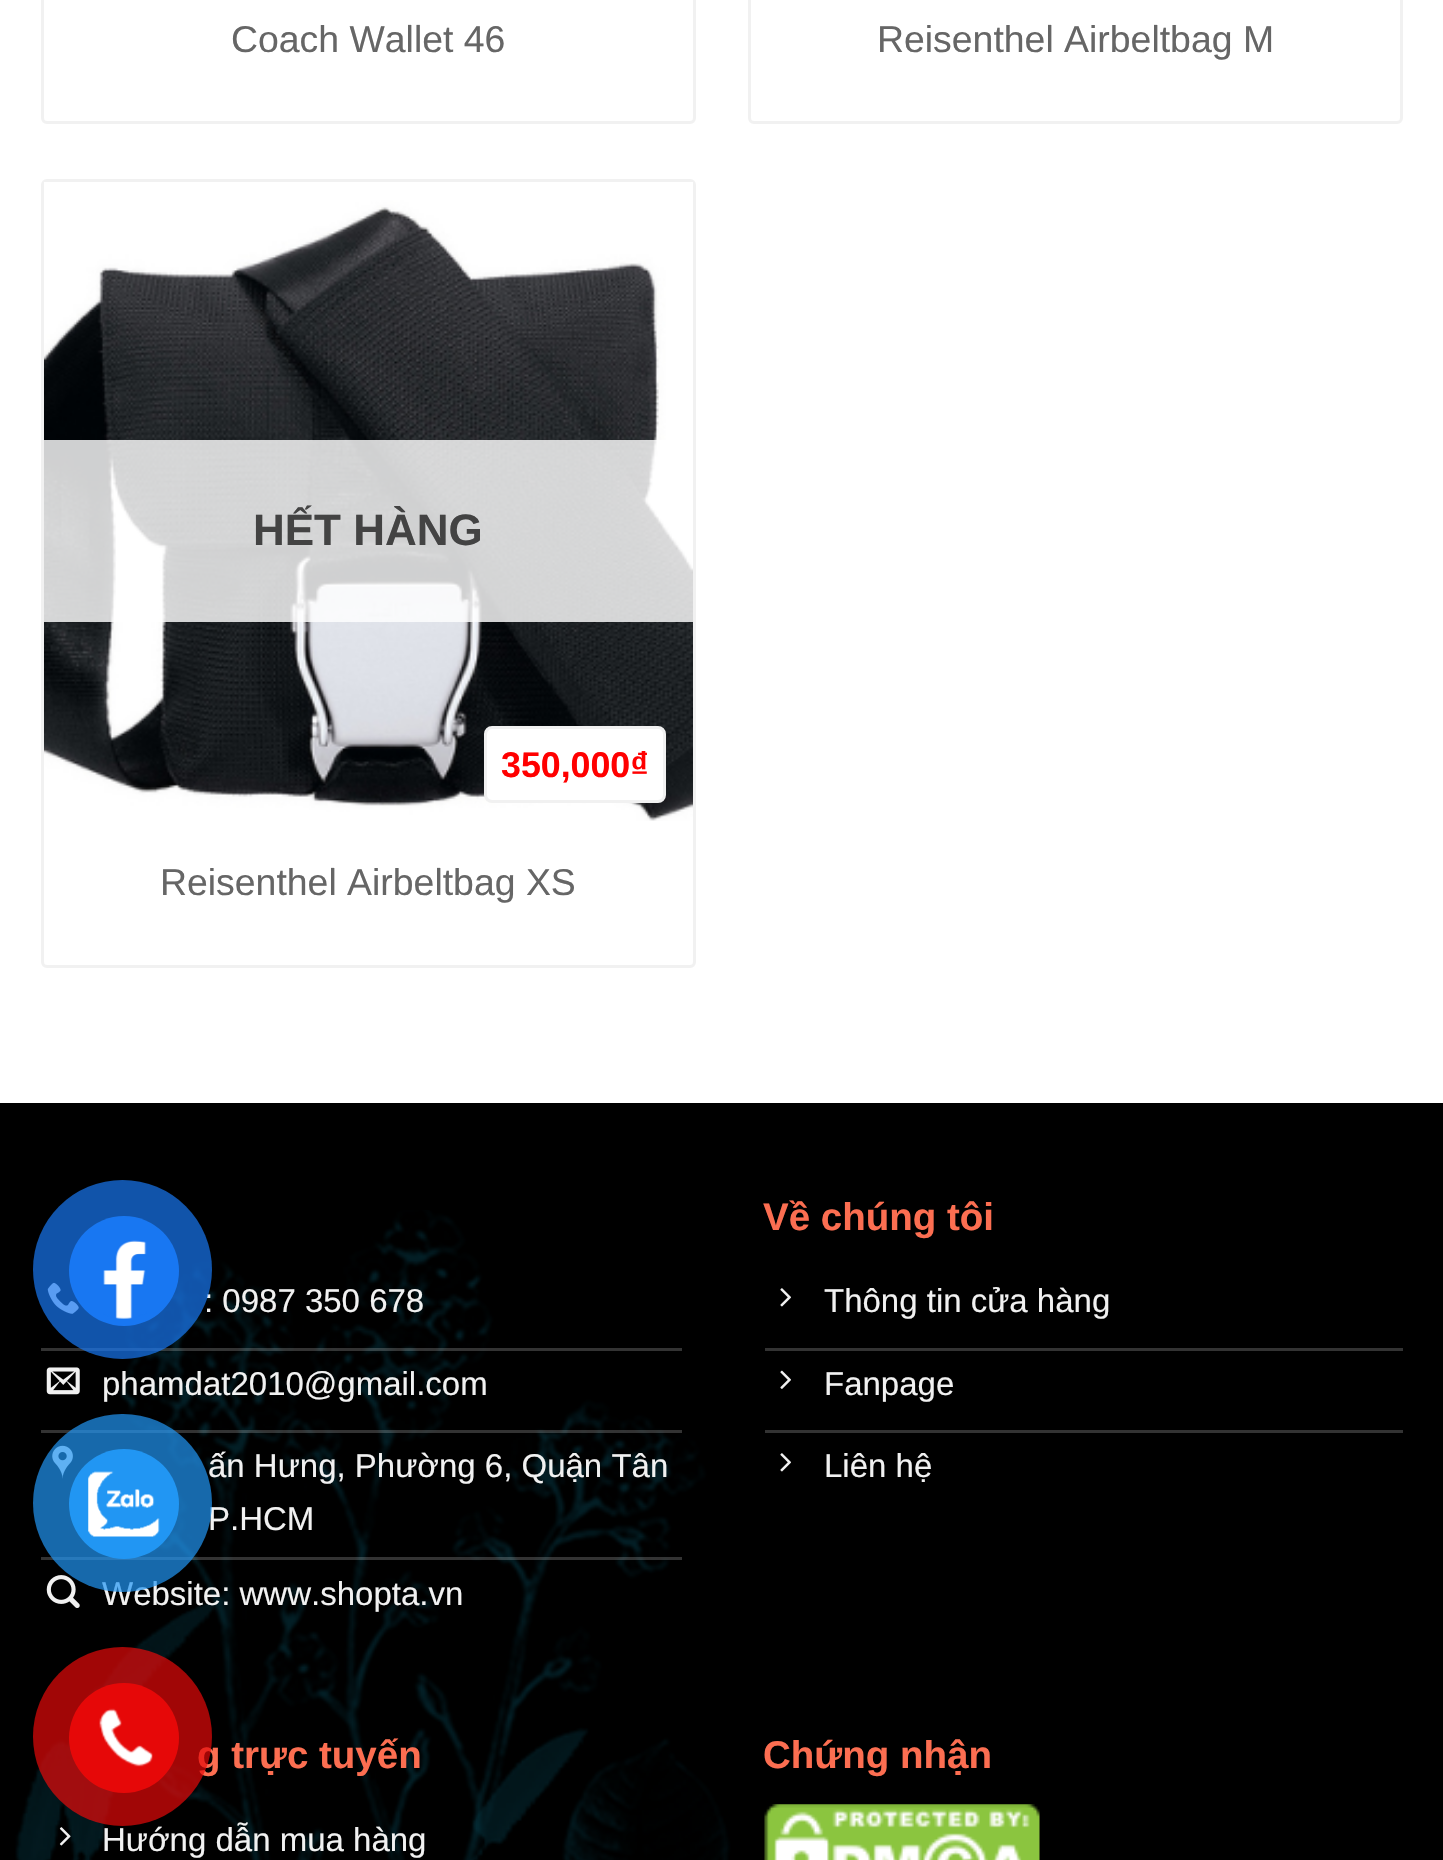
#include "include/core/SkBlurTypes.h"
#include "include/core/SkCanvas.h"
#include "include/core/SkData.h"
#include "include/core/SkFont.h"
#include "include/core/SkFontMgr.h"
#include "include/core/SkImage.h"
#include "include/core/SkMaskFilter.h"
#include "include/core/SkPaint.h"
#include "include/core/SkPathBuilder.h"
#include "include/core/SkTextBlob.h"
#include "include/effects/SkDashPathEffect.h"
#include "include/effects/SkGradientShader.h"
#include "include/utils/SkParsePath.h"

extern sk_sp<SkFontMgr> fontMgr;

static SkFont font(const char* family, int weight, float size, bool italic = false) {
    SkFontStyle style(weight, SkFontStyle::kNormal_Width,
        italic ? SkFontStyle::kItalic_Slant : SkFontStyle::kUpright_Slant);
    SkFont result(fontMgr->matchFamilyStyle(family, style), size);
    result.setSubpixel(true);
    return result;
}

static void drawLabel(SkCanvas* canvas, const char* s, float x, float y, const SkFont& font, SkColor color) {
    SkPaint ink(SkColor4f::FromColor(color));
    ink.setAntiAlias(true);
    canvas->drawString(s, x, y, font, ink);
}

static void fillRect(SkCanvas* canvas, float x, float y, float w, float h, SkColor color) {
    SkPaint ink(SkColor4f::FromColor(color));
    ink.setAntiAlias(true);
    canvas->drawRect(SkRect::MakeXYWH(x, y, w, h), ink);
}

static void fillRRect(SkCanvas* canvas, float x, float y, float w, float h, float radius, SkColor color) {
    SkPaint ink(SkColor4f::FromColor(color));
    ink.setAntiAlias(true);
    canvas->drawRoundRect(SkRect::MakeXYWH(x, y, w, h), radius, radius, ink);
}

static void drawPhoto(SkCanvas* canvas, const char* path, float x, float y, float w, float h) {
    auto image = SkImages::DeferredFromEncodedData(SkData::MakeFromFileName(path));
    canvas->drawImageRect(image, SkRect::MakeXYWH(x, y, w, h), SkSamplingOptions());
}

void draw(SkCanvas* canvas) {
    SkPaint paint;
    paint.setAntiAlias(true);
    canvas->clear(0xFFFFFFFF);
    paint.setStroke(true);
    paint.setStrokeWidth(3);
    paint.setColor(0xFFF1F1F1);
    canvas->drawRoundRect(SkRect::MakeXYWH(42.5f, -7.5f, 652, 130), 4.5f, 4.5f, paint);
    SkFont font1 = font("Liberation Sans", 400, 37.4f);
    drawLabel(canvas, "Coach Wallet 46", 231, 52, font1, 0xFF666666);
    canvas->drawRoundRect(SkRect::MakeXYWH(749.5f, -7.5f, 652, 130), 4.5f, 4.5f, paint);
    drawLabel(canvas, "Reisenthel Airbeltbag M", 877, 52, font1, 0xFF666666);
    canvas->drawRoundRect(SkRect::MakeXYWH(42.5f, 180.5f, 652, 786), 4.5f, 4.5f, paint);
    drawPhoto(canvas, "assets/img1.png", 44, 182, 649, 639);
    fillRect(canvas, 44, 440, 649, 182, 0xCFFFFFFF);
    SkFont font2 = font("Liberation Sans", 700, 44);
    drawLabel(canvas, "HẾT HÀNG", 253, 545, font2, 0xFF434343);
    paint.setStroke(false);
    paint.setColor(0xFFFFFFFF);
    canvas->drawRoundRect(SkRect::MakeXYWH(485.5f, 727.5f, 179, 74), 6.5f, 6.5f, paint);
    paint.setStroke(true);
    paint.setColor(0xFFF1F1F1);
    canvas->drawRoundRect(SkRect::MakeXYWH(485.5f, 727.5f, 179, 74), 6.5f, 6.5f, paint);
    SkFont font3 = font("Liberation Sans", 700, 35.75f);
    drawLabel(canvas, "350,000₫", 501, 777, font3, 0xFFFF0000);
    drawLabel(canvas, "Reisenthel Airbeltbag XS", 160, 895, font1, 0xFF666666);
    fillRect(canvas, 0, 1103, 1443, 757, 0xFF000000);
    drawPhoto(canvas, "assets/img10.png", 15, 1210, 716, 650);
    fillRect(canvas, 41, 1348, 641, 3, 0x33FFFFFF);
    drawPhoto(canvas, "assets/img2.png", 47, 1282, 32, 32);
    SkFont font4 = font("Liberation Sans", 400, 33);
    drawLabel(canvas, ": 0987 350 678", 204, 1312, font4, 0xFFF1F1F1);
    fillRect(canvas, 41, 1430, 641, 3, 0x33FFFFFF);
    drawPhoto(canvas, "assets/img3.png", 46, 1367, 34, 28);
    drawLabel(canvas, "phamdat2010@gmail.com", 102, 1395, font4, 0xFFF1F1F1);
    fillRect(canvas, 41, 1557, 641, 3, 0x33FFFFFF);
    drawPhoto(canvas, "assets/img4.png", 52, 1445, 21, 34);
    drawLabel(canvas, "ấn Hưng, Phường 6, Quận Tân", 208, 1477, font4, 0xFFF1F1F1);
    drawLabel(canvas, "P.HCM", 208, 1530, font4, 0xFFF1F1F1);
    drawPhoto(canvas, "assets/img5.png", 46, 1575, 34, 33);
    drawLabel(canvas, "Website: www.shopta.vn", 102, 1605, font4, 0xFFF1F1F1);
    SkFont font5 = font("Liberation Sans", 700, 38.5f);
    drawLabel(canvas, "Về chúng tôi", 763, 1230, font5, 0xFFFC6E51);
    fillRect(canvas, 765, 1348, 638, 3, 0xFF333333);
    drawPhoto(canvas, "assets/img6.png", 780, 1288, 11, 19);
    drawLabel(canvas, "Thông tin cửa hàng", 824, 1312, font4, 0xFFF1F1F1);
    fillRect(canvas, 765, 1430, 638, 3, 0xFF333333);
    drawPhoto(canvas, "assets/img7.png", 780, 1370, 11, 19);
    drawLabel(canvas, "Fanpage", 824, 1395, font4, 0xFFF1F1F1);
    drawPhoto(canvas, "assets/img6.png", 780, 1453, 11, 19);
    drawLabel(canvas, "Liên hệ", 824, 1477, font4, 0xFFF1F1F1);
    drawLabel(canvas, "g trực tuyến", 197, 1768, font5, 0xFFFC6E51);
    drawPhoto(canvas, "assets/img8.png", 59, 1827, 12, 19);
    drawLabel(canvas, "Hướng dẫn mua hàng", 102, 1851, font4, 0xFFF1F1F1);
    drawLabel(canvas, "Chứng nhận", 763, 1768, font5, 0xFFFC6E51);
    drawPhoto(canvas, "assets/img9.png", 764, 1804, 276, 56);
    paint.setStroke(false);
    paint.setColor(0xB31877F2);
    canvas->drawCircle(122.5f, 1269.5f, 89.5f, paint);
    paint.setColor(0xFF1877F2);
    canvas->drawCircle(124, 1271, 55, paint);
    drawPhoto(canvas, "assets/img11.png", 103, 1240, 44, 79);
    fillRRect(canvas, 33, 1414, 179, 178, 89, 0xB32196F3);
    paint.setColor(0xFF2196F3);
    canvas->drawCircle(124, 1504, 55, paint);
    drawPhoto(canvas, "assets/img12.png", 88, 1471, 72, 66);
    paint.setColor(0xB3E60808);
    canvas->drawCircle(122.5f, 1736.5f, 89.5f, paint);
    paint.setColor(0xFFE60808);
    canvas->drawCircle(124, 1738, 55, paint);
    drawPhoto(canvas, "assets/img13.png", 99, 1708, 54, 59);
}
